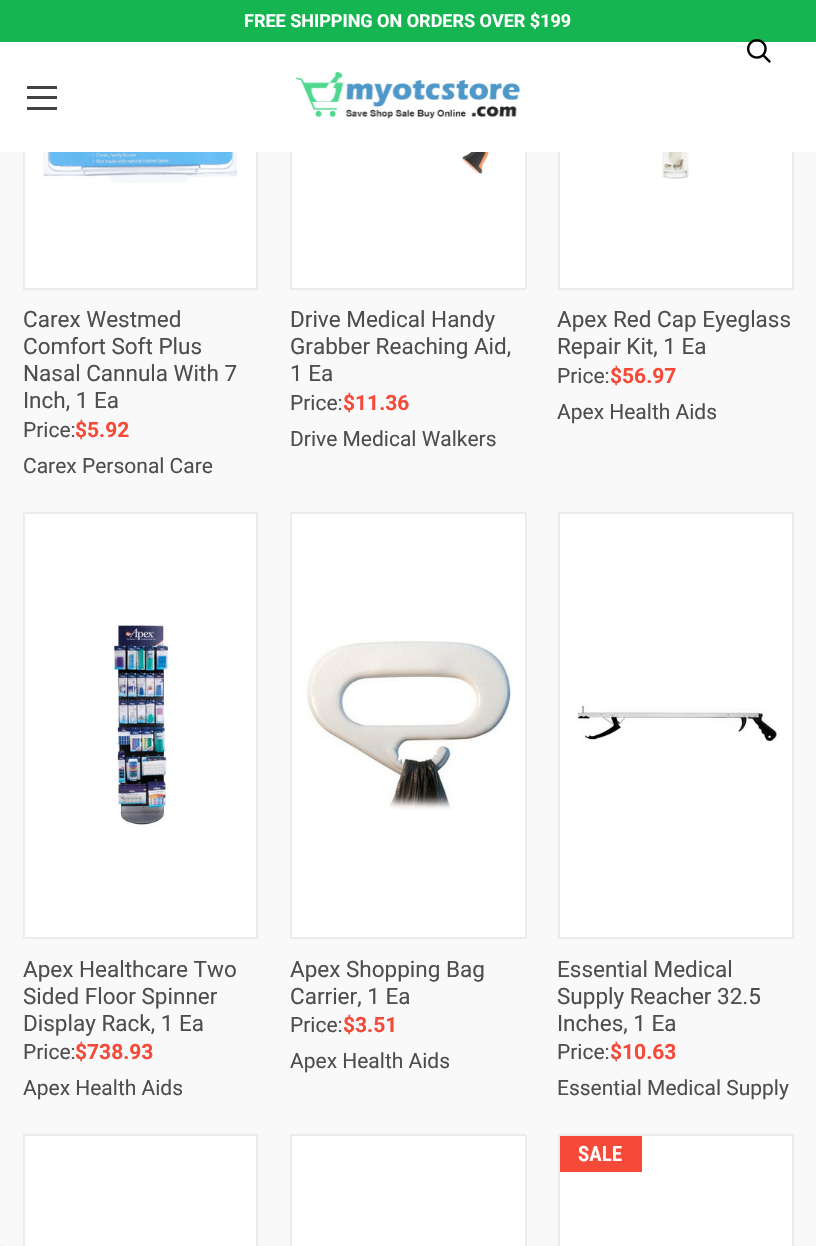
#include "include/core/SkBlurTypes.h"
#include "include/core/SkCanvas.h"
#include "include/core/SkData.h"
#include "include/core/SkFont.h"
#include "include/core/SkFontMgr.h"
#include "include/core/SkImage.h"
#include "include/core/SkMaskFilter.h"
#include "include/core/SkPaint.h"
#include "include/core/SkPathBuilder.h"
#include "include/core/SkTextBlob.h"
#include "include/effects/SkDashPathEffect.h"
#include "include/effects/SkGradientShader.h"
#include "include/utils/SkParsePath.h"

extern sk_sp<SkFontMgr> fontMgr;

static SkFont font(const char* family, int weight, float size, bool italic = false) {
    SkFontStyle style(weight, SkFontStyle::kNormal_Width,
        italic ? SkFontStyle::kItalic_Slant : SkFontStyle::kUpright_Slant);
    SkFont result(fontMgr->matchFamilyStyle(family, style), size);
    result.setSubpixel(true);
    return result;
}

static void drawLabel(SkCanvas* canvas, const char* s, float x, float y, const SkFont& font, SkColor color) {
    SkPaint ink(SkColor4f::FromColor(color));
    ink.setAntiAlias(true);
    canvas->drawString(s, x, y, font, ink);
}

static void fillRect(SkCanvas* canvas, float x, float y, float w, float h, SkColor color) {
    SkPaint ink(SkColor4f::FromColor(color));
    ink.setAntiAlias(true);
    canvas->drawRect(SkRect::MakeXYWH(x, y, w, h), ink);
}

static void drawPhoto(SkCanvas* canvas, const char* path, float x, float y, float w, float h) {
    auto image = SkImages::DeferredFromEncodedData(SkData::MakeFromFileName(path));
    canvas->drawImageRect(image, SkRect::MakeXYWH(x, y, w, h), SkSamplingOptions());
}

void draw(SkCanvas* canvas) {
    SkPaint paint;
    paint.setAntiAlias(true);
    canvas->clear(0xFFF9F9F9);
    fillRect(canvas, 25, 152, 231, 136, 0xFFFFFFFF);
    paint.setStroke(true);
    paint.setStrokeWidth(2);
    paint.setColor(0xFFEBEBEB);
    canvas->drawRect(SkRect::MakeXYWH(24, -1, 233, 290), paint);
    fillRect(canvas, 292, 152, 233, 136, 0xFFFFFFFF);
    canvas->drawRect(SkRect::MakeXYWH(291, -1, 235, 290), paint);
    fillRect(canvas, 560, 152, 232, 136, 0xFFFFFFFF);
    canvas->drawRect(SkRect::MakeXYWH(559, -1, 234, 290), paint);
    fillRect(canvas, 0, 0, 816, 42, 0xFF15B651);
    SkFont font1 = font("Roboto", 700, 18);
    drawLabel(canvas, "FREE SHIPPING ON ORDERS OVER $199", 244, 27, font1, 0xFFFFFFFF);
    fillRect(canvas, 0, 42, 816, 110, 0xFFFFFFFF);
    drawPhoto(canvas, "assets/img1.png", 747, 39, 24, 24);
    drawPhoto(canvas, "assets/img2.png", 295, 72, 226, 47);
    fillRect(canvas, 27, 96, 30, 3, 0xFF424242);
    fillRect(canvas, 27, 86, 30, 3, 0xFF424242);
    fillRect(canvas, 27, 107, 30, 3, 0xFF424242);
    drawPhoto(canvas, "assets/img3.png", 43, 152, 194, 31);
    SkFont font2 = font("Roboto", 400, 22.5f);
    drawLabel(canvas, "Carex Westmed", 23, 327, font2, 0xFF4E4E4E);
    drawLabel(canvas, "Comfort Soft Plus", 23, 354, font2, 0xFF4E4E4E);
    drawLabel(canvas, "Nasal Cannula With 7", 23, 381, font2, 0xFF4E4E4E);
    drawLabel(canvas, "Inch, 1 Ea", 23, 408, font2, 0xFF4E4E4E);
    SkFont font3 = font("Roboto", 400, 21);
    drawLabel(canvas, "Price:", 23, 437, font3, 0xFF4E4E4E);
    SkFont font4 = font("Roboto", 700, 21);
    drawLabel(canvas, "$5.92", 75, 437, font4, 0xFFF54A3A);
    drawLabel(canvas, "Carex Personal Care", 23, 473, font3, 0xFF4E4E4E);
    drawPhoto(canvas, "assets/img4.png", 307, 152, 194, 22);
    drawLabel(canvas, "Drive Medical Handy", 290, 327, font2, 0xFF4E4E4E);
    drawLabel(canvas, "Grabber Reaching Aid,", 290, 354, font2, 0xFF4E4E4E);
    drawLabel(canvas, "1 Ea", 290, 381, font2, 0xFF4E4E4E);
    drawLabel(canvas, "Price:", 290, 410, font3, 0xFF4E4E4E);
    drawLabel(canvas, "$11.36", 343, 410, font4, 0xFFF54A3A);
    drawLabel(canvas, "Drive Medical Walkers", 290, 446, font3, 0xFF4E4E4E);
    drawPhoto(canvas, "assets/img5.png", 660, 152, 30, 27);
    drawLabel(canvas, "Apex Red Cap Eyeglass", 557, 327, font2, 0xFF4E4E4E);
    drawLabel(canvas, "Repair Kit, 1 Ea", 557, 354, font2, 0xFF4E4E4E);
    drawLabel(canvas, "Price:", 557, 383, font3, 0xFF4E4E4E);
    drawLabel(canvas, "$56.97", 610, 383, font4, 0xFFF54A3A);
    drawLabel(canvas, "Apex Health Aids", 557, 419, font3, 0xFF4E4E4E);
    paint.setStroke(false);
    paint.setColor(0xFFFFFFFF);
    canvas->drawRect(SkRect::MakeXYWH(24, 513, 233, 425), paint);
    paint.setStroke(true);
    paint.setColor(0xFFEBEBEB);
    canvas->drawRect(SkRect::MakeXYWH(24, 513, 233, 425), paint);
    drawPhoto(canvas, "assets/img6.png", 112, 625, 59, 202);
    drawLabel(canvas, "Apex Healthcare Two", 23, 977, font2, 0xFF4E4E4E);
    drawLabel(canvas, "Sided Floor Spinner", 23, 1004, font2, 0xFF4E4E4E);
    drawLabel(canvas, "Display Rack, 1 Ea", 23, 1031, font2, 0xFF4E4E4E);
    drawLabel(canvas, "Price:", 23, 1059, font3, 0xFF4E4E4E);
    drawLabel(canvas, "$738.93", 75, 1059, font4, 0xFFF54A3A);
    drawLabel(canvas, "Apex Health Aids", 23, 1095, font3, 0xFF4E4E4E);
    paint.setStroke(false);
    paint.setColor(0xFFFFFFFF);
    canvas->drawRect(SkRect::MakeXYWH(291, 513, 235, 425), paint);
    paint.setStroke(true);
    paint.setColor(0xFFEBEBEB);
    canvas->drawRect(SkRect::MakeXYWH(291, 513, 235, 425), paint);
    drawPhoto(canvas, "assets/img7.png", 305, 639, 206, 171);
    drawLabel(canvas, "Apex Shopping Bag", 290, 977, font2, 0xFF4E4E4E);
    drawLabel(canvas, "Carrier, 1 Ea", 290, 1004, font2, 0xFF4E4E4E);
    drawLabel(canvas, "Price:", 290, 1032, font3, 0xFF4E4E4E);
    drawLabel(canvas, "$3.51", 343, 1032, font4, 0xFFF54A3A);
    drawLabel(canvas, "Apex Health Aids", 290, 1068, font3, 0xFF4E4E4E);
    paint.setStroke(false);
    paint.setColor(0xFFFFFFFF);
    canvas->drawRect(SkRect::MakeXYWH(559, 513, 234, 425), paint);
    paint.setStroke(true);
    paint.setColor(0xFFEBEBEB);
    canvas->drawRect(SkRect::MakeXYWH(559, 513, 234, 425), paint);
    drawPhoto(canvas, "assets/img8.png", 576, 703, 203, 40);
    drawLabel(canvas, "Essential Medical", 557, 977, font2, 0xFF4E4E4E);
    drawLabel(canvas, "Supply Reacher 32.5", 557, 1004, font2, 0xFF4E4E4E);
    drawLabel(canvas, "Inches, 1 Ea", 557, 1031, font2, 0xFF4E4E4E);
    drawLabel(canvas, "Price:", 557, 1059, font3, 0xFF4E4E4E);
    drawLabel(canvas, "$10.63", 610, 1059, font4, 0xFFF54A3A);
    drawLabel(canvas, "Essential Medical Supply", 557, 1095, font3, 0xFF4E4E4E);
    paint.setStroke(false);
    paint.setColor(0xFFFFFFFF);
    canvas->drawRect(SkRect::MakeXYWH(24, 1135, 233, 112), paint);
    paint.setStroke(true);
    paint.setColor(0xFFEBEBEB);
    canvas->drawRect(SkRect::MakeXYWH(24, 1135, 233, 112), paint);
    paint.setStroke(false);
    paint.setColor(0xFFFFFFFF);
    canvas->drawRect(SkRect::MakeXYWH(291, 1135, 235, 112), paint);
    paint.setStroke(true);
    paint.setColor(0xFFEBEBEB);
    canvas->drawRect(SkRect::MakeXYWH(291, 1135, 235, 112), paint);
    paint.setStroke(false);
    paint.setColor(0xFFFFFFFF);
    canvas->drawRect(SkRect::MakeXYWH(559, 1135, 234, 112), paint);
    paint.setStroke(true);
    paint.setColor(0xFFEBEBEB);
    canvas->drawRect(SkRect::MakeXYWH(559, 1135, 234, 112), paint);
    fillRect(canvas, 560, 1136, 82, 36, 0xFFF54A3A);
    SkFont font5 = font("Roboto Condensed", 600, 21);
    drawLabel(canvas, "SALE", 578, 1161, font5, 0xFFFFFFFF);
    fillRect(canvas, 0, 1244, 3, 2, 0xFFF5F5F5);
}
